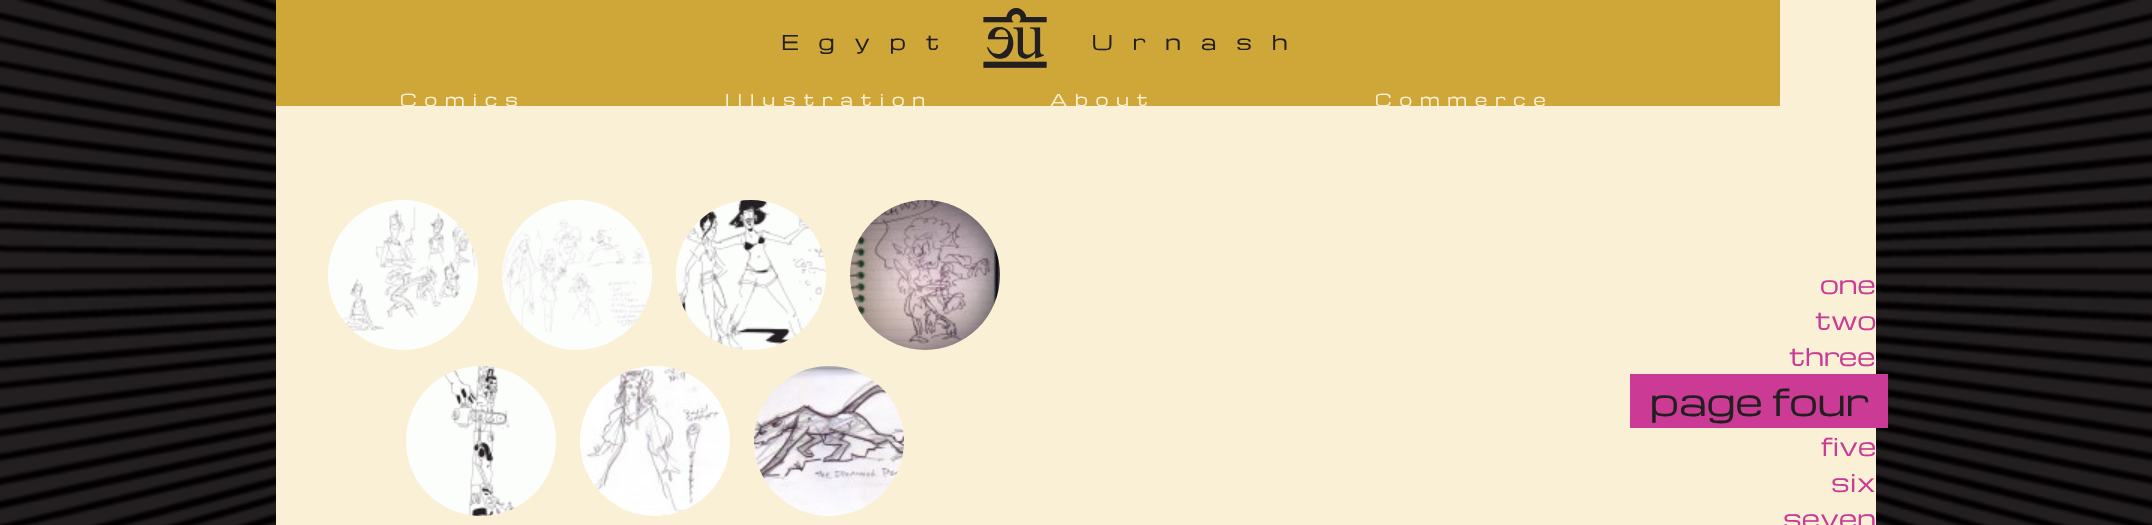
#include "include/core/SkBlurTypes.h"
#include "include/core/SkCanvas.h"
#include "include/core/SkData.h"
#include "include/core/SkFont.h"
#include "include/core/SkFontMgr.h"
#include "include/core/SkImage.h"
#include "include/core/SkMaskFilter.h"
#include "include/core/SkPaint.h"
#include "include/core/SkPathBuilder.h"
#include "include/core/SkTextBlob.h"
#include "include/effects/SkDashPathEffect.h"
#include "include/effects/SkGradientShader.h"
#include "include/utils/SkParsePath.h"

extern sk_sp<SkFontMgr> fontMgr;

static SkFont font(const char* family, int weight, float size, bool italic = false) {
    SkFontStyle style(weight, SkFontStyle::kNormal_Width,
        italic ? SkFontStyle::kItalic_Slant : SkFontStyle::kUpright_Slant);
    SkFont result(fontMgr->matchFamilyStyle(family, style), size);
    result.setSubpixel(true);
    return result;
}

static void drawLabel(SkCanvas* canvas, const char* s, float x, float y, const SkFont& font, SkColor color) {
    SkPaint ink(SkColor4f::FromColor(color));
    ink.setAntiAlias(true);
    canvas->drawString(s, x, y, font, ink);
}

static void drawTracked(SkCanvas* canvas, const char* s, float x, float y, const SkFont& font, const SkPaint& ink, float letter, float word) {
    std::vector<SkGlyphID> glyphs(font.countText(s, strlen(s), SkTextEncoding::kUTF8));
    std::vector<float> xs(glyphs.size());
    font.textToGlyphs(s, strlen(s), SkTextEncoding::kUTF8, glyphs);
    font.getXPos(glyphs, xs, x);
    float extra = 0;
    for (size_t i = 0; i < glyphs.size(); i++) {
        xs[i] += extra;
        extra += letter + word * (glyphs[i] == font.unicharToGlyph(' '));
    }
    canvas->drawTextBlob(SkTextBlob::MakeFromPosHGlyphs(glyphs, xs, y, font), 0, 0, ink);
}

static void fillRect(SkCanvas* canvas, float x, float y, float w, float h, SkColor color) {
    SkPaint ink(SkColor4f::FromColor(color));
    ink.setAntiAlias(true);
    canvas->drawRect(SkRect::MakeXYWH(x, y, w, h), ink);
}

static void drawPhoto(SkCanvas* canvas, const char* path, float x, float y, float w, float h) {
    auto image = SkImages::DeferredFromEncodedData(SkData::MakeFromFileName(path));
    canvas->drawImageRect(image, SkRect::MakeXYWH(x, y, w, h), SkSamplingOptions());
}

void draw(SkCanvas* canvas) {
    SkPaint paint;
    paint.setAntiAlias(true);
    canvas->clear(0xFFFFFFFF);
    drawPhoto(canvas, "assets/img1.png", 0, 0, 2152, 525);
    fillRect(canvas, 276, 0, 1600, 525, 0xFFFAF0D6);
    fillRect(canvas, 276, 0, 1504, 106, 0xFFCFA739);
    SkFont font1 = font("Michroma", 400, 20);
    paint.setColor(0xFF231F20);
    drawTracked(canvas, "Egypt", 781, 50, font1, paint, 20, 0);
    SkFont font2 = font("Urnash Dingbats", 400, 80);
    drawTracked(canvas, "*", 983, 68, font2, paint, 20, 0);
    drawTracked(canvas, "Urnash", 1092, 50, font1, paint, 20, 0);
    canvas->save();
    canvas->clipRect(SkRect::MakeXYWH(276, 0, 1504, 106));
    SkFont font3 = font("Michroma", 400, 16);
    paint.setColor(0xFFFAF0D6);
    drawTracked(canvas, "Comics", 400, 106, font3, paint, 8, 0);
    drawTracked(canvas, "Illustration", 725, 106, font3, paint, 8, 0);
    drawTracked(canvas, "About", 1050, 106, font3, paint, 8, 0);
    drawTracked(canvas, "Commerce", 1375, 106, font3, paint, 8, 0);
    canvas->restore();
    drawPhoto(canvas, "assets/img2.png", 328, 200, 150, 150);
    drawPhoto(canvas, "assets/img3.png", 502, 200, 150, 150);
    drawPhoto(canvas, "assets/img4.png", 676, 200, 150, 150);
    drawPhoto(canvas, "assets/img5.png", 850, 200, 150, 150);
    drawPhoto(canvas, "assets/img6.png", 406, 366, 150, 150);
    drawPhoto(canvas, "assets/img7.png", 580, 366, 150, 150);
    drawPhoto(canvas, "assets/img8.png", 754, 366, 150, 150);
    SkFont font4 = font("Michroma", 400, 24);
    drawLabel(canvas, "one", 1820, 294, font4, 0xFFCB3A95);
    drawLabel(canvas, "two", 1815, 330, font4, 0xFFCB3A95);
    drawLabel(canvas, "three", 1789, 366, font4, 0xFFCB3A95);
    fillRect(canvas, 1630, 374, 258, 54, 0xFFCB3A95);
    SkFont font5 = font("Michroma", 400, 36);
    drawLabel(canvas, "page four", 1650, 416, font5, 0xFF231F20);
    drawLabel(canvas, "five", 1820, 456, font4, 0xFFCB3A95);
    drawLabel(canvas, "six", 1831, 492, font4, 0xFFCB3A95);
    drawLabel(canvas, "seven", 1783, 528, font4, 0xFFCB3A95);
}
